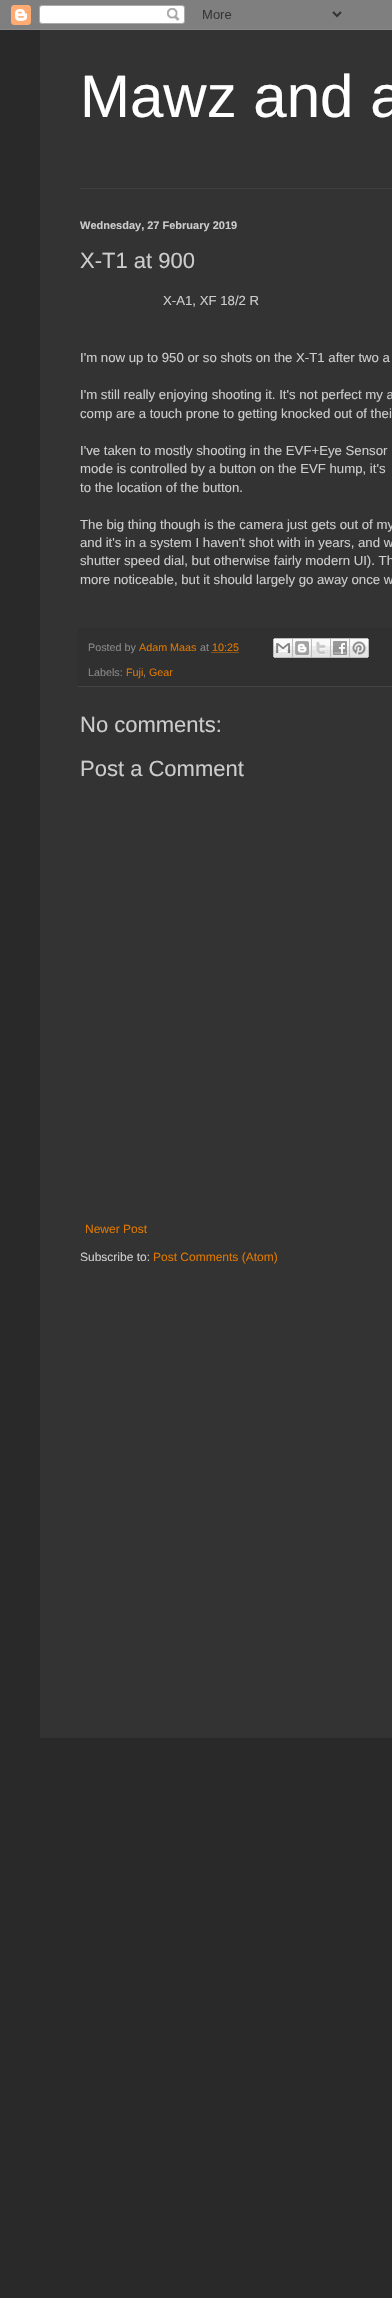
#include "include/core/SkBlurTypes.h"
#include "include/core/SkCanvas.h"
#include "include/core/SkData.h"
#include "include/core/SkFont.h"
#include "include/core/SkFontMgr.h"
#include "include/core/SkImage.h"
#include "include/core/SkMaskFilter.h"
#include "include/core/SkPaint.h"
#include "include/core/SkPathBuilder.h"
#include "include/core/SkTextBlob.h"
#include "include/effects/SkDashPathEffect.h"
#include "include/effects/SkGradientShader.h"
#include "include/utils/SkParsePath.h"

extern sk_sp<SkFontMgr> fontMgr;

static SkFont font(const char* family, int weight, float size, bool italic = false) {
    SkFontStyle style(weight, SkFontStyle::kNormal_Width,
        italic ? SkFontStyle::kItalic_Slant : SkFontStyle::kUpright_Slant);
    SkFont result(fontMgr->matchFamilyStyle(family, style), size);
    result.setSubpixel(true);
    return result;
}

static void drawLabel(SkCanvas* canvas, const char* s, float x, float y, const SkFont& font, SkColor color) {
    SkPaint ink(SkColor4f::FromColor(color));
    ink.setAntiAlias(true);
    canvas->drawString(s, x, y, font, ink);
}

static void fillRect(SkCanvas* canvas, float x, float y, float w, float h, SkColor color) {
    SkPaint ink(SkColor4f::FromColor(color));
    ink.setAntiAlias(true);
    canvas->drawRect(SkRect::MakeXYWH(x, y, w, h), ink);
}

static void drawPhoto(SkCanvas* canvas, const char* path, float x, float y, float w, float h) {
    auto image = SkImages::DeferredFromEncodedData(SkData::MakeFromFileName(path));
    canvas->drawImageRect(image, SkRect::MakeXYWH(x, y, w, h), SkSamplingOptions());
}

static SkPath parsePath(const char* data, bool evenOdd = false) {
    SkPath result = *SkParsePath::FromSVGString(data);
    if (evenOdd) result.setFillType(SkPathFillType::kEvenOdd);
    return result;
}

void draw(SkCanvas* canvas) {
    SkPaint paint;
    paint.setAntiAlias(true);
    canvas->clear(0xFF292929);
    drawPhoto(canvas, "assets/img1.png", 0, 0, 392, 30);
    fillRect(canvas, 40, 30, 352, 1708, 0xFF333333);
    SkFont font1 = font("Liberation Sans", 400, 60);
    drawLabel(canvas, "Mawz and a", 80, 117, font1, 0xFFFFFFFF);
    fillRect(canvas, 80, 188, 312, 1, 0xFF404040);
    SkFont font2 = font("Liberation Sans", 700, 11);
    drawLabel(canvas, "Wednesday, 27 February 2019", 80, 229, font2, 0xFFCCCCCC);
    SkFont font3 = font("Liberation Sans", 400, 22);
    drawLabel(canvas, "X-T1 at 900", 80, 268, font3, 0xFFCCCCCC);
    SkFont font4 = font("Liberation Sans", 400, 13.2f);
    drawLabel(canvas, "X-A1, XF 18/2 R", 163, 305, font4, 0xFFCCCCCC);
    drawLabel(canvas, "I'm now up to 950 or so shots on the X-T1 after two a", 80, 362, font4, 0xFFCCCCCC);
    drawLabel(canvas, "I'm still really enjoying shooting it. It's not perfect my a", 80, 399, font4, 0xFFCCCCCC);
    drawLabel(canvas, "comp are a touch prone to getting knocked out of thei", 80, 418, font4, 0xFFCCCCCC);
    drawLabel(canvas, "I've taken to mostly shooting in the EVF+Eye Sensor", 80, 455, font4, 0xFFCCCCCC);
    drawLabel(canvas, "mode is controlled by a button on the EVF hump, it's", 80, 473, font4, 0xFFCCCCCC);
    drawLabel(canvas, "to the location of the button.", 80, 492, font4, 0xFFCCCCCC);
    drawLabel(canvas, "The big thing though is the camera just gets out of my", 80, 529, font4, 0xFFCCCCCC);
    drawLabel(canvas, "and it's in a system I haven't shot with in years, and w", 80, 547, font4, 0xFFCCCCCC);
    drawLabel(canvas, "shutter speed dial, but otherwise fairly modern UI). Th", 80, 565, font4, 0xFFCCCCCC);
    drawLabel(canvas, "more noticeable, but it should largely go away once w", 80, 584, font4, 0xFFCCCCCC);
    fillRect(canvas, 78, 628, 314, 58, 0xFF303030);
    fillRect(canvas, 78, 686, 314, 1, 0xFF444444);
    SkFont font5 = font("Liberation Sans", 400, 10.75f);
    drawLabel(canvas, "Posted by", 88, 651, font5, 0xFF888888);
    drawLabel(canvas, "Adam Maas", 139, 651, font5, 0xFFDD7700);
    drawLabel(canvas, "at", 200, 651, font5, 0xFF888888);
    drawLabel(canvas, "10:25", 212, 651, font5, 0xFFDD7700);
    paint.setStroke(true);
    paint.setStrokeWidth(1);
    paint.setColor(0xFFDD7700);
    paint.setPathEffect(SkDashPathEffect::Make({{1, 1}}, 0));
    canvas->drawPath(parsePath("M211.5 652.5H238.5"), paint);
    paint.setPathEffect(nullptr);
    drawPhoto(canvas, "assets/img2.png", 273, 638, 20, 20);
    drawPhoto(canvas, "assets/img3.png", 293, 638, 19, 20);
    drawPhoto(canvas, "assets/img4.png", 312, 638, 19, 20);
    drawPhoto(canvas, "assets/img5.png", 331, 638, 19, 20);
    drawPhoto(canvas, "assets/img6.png", 350, 638, 19, 20);
    drawLabel(canvas, "Labels:", 88, 676, font5, 0xFF888888);
    drawLabel(canvas, "Fuji", 126, 676, font5, 0xFFDD7700);
    drawLabel(canvas, ",", 143, 676, font5, 0xFF888888);
    drawLabel(canvas, "Gear", 149, 676, font5, 0xFFDD7700);
    drawLabel(canvas, "No comments:", 80, 732, font3, 0xFFCCCCCC);
    drawLabel(canvas, "Post a Comment", 80, 776, font3, 0xFFCCCCCC);
    SkFont font6 = font("Liberation Sans", 400, 12);
    drawLabel(canvas, "Newer Post", 85, 1233, font6, 0xFFDD7700);
    drawLabel(canvas, "Subscribe to:", 80, 1261, font6, 0xFFCCCCCC);
    drawLabel(canvas, "Post Comments (Atom)", 153, 1261, font6, 0xFFDD7700);
}
